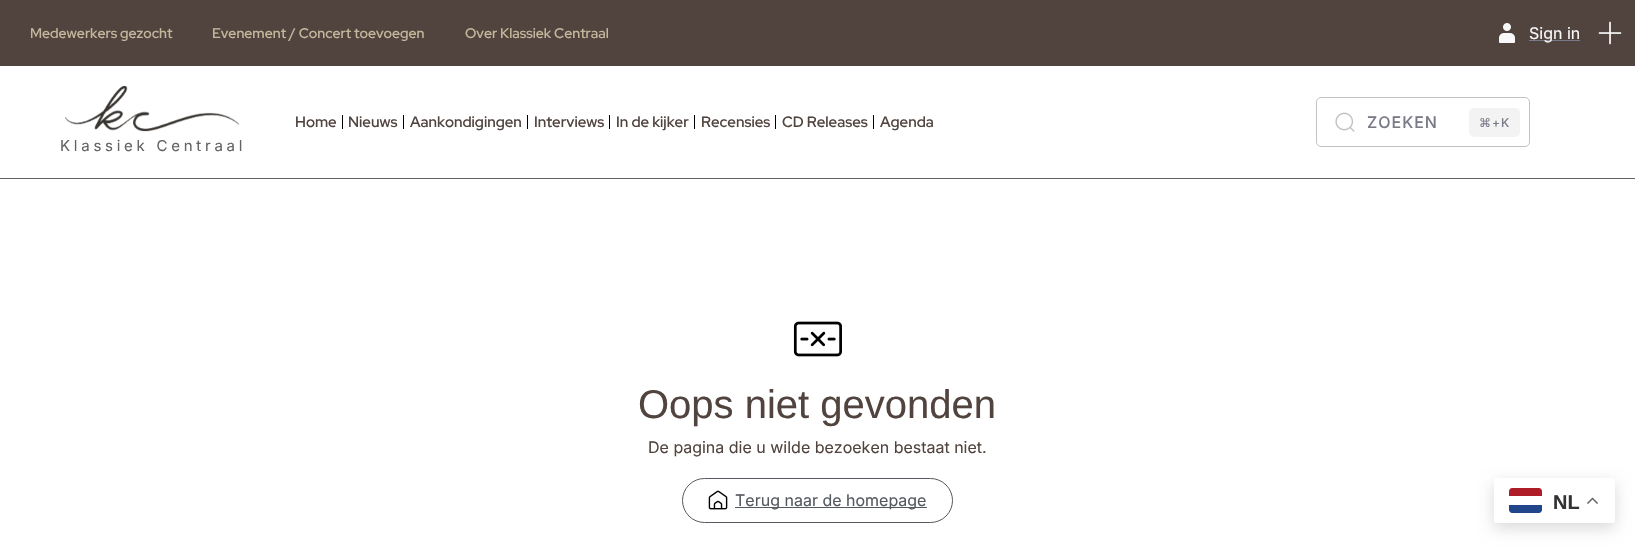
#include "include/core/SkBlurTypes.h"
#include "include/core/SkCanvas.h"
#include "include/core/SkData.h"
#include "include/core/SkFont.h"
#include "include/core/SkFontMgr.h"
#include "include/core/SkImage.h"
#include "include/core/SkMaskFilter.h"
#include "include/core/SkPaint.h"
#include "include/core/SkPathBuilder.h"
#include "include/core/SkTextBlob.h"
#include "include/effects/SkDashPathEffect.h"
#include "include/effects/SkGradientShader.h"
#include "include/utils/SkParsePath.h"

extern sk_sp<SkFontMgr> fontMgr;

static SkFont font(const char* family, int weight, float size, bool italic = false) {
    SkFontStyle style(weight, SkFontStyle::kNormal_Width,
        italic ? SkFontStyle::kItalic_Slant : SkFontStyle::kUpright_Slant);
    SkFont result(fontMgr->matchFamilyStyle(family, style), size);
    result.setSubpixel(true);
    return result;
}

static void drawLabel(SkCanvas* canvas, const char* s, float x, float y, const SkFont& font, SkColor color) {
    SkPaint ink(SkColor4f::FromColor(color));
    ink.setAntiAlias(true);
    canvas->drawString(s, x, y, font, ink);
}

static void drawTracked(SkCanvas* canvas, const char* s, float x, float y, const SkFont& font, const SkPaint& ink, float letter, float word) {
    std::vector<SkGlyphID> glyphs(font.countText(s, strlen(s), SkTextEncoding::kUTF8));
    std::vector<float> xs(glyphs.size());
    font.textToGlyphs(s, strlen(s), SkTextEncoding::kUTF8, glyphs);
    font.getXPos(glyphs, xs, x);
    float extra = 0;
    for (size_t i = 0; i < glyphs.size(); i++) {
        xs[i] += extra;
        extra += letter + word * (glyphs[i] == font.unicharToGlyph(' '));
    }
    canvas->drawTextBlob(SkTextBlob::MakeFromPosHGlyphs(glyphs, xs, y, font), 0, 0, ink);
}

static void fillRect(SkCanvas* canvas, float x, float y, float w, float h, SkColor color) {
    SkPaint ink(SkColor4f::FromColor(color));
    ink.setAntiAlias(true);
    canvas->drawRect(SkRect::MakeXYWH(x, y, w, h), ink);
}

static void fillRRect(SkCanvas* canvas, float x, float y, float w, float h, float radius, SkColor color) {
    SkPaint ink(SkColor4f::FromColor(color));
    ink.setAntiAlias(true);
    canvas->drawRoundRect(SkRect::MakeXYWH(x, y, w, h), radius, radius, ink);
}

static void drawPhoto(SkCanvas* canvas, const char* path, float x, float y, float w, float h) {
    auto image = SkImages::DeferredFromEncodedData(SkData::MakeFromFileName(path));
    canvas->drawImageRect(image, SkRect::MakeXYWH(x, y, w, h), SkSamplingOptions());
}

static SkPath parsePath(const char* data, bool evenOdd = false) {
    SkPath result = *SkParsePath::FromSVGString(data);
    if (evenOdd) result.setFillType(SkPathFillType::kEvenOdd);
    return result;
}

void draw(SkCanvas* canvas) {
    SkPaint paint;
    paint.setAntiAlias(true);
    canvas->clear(0xFFFFFFFF);
    fillRect(canvas, 0, 0, 1635, 66, 0xFF51443F);
    SkFont font1 = font("Red Hat Display", 600, 14);
    drawLabel(canvas, "Medewerkers gezocht", 30, 38, font1, 0xFFC4B79C);
    drawLabel(canvas, "Evenement / Concert toevoegen", 212, 38, font1, 0xFFC4B79C);
    drawLabel(canvas, "Over Klassiek Centraal", 465, 38, font1, 0xFFC4B79C);
    drawPhoto(canvas, "assets/img1.png", 1499, 23, 16, 20);
    fillRect(canvas, 1529, 40, 51, 1, 0xFF797A88);
    SkFont font2 = font("Inter", 400, 16);
    drawLabel(canvas, "Sign in", 1529, 39, font2, 0xFFF9F9F9);
    drawPhoto(canvas, "assets/img2.png", 1598, 21, 24, 24);
    fillRect(canvas, 0, 178, 1635, 1, 0xFF646363);
    SkFont font3 = font("Red Hat Display", 600, 15);
    drawLabel(canvas, "Home", 295, 127, font3, 0xFF51443F);
    fillRect(canvas, 342, 115, 1, 14, 0xFF000000);
    drawLabel(canvas, "Nieuws", 348, 127, font3, 0xFF51443F);
    fillRect(canvas, 403, 115, 1, 14, 0xFF000000);
    drawLabel(canvas, "Aankondigingen", 410, 127, font3, 0xFF51443F);
    fillRect(canvas, 527, 115, 1, 14, 0xFF000000);
    drawLabel(canvas, "Interviews", 534, 127, font3, 0xFF51443F);
    fillRect(canvas, 609, 115, 1, 14, 0xFF000000);
    drawLabel(canvas, "In de kijker", 616, 127, font3, 0xFF51443F);
    fillRect(canvas, 694, 115, 1, 14, 0xFF000000);
    drawLabel(canvas, "Recensies", 701, 127, font3, 0xFF51443F);
    fillRect(canvas, 775, 115, 1, 14, 0xFF000000);
    drawLabel(canvas, "CD Releases", 782, 127, font3, 0xFF51443F);
    fillRect(canvas, 873, 115, 1, 14, 0xFF000000);
    drawLabel(canvas, "Agenda", 880, 127, font3, 0xFF51443F);
    paint.setStroke(true);
    paint.setStrokeWidth(1);
    paint.setColor(0xFFBFC3C8);
    canvas->drawRoundRect(SkRect::MakeXYWH(1316.5f, 97.5f, 213, 49), 4.5f, 4.5f, paint);
    drawPhoto(canvas, "assets/img3.png", 1335, 112, 20, 20);
    SkFont font4 = font("Inter", 500, 16);
    paint.setStroke(false);
    paint.setColor(0xFF797A88);
    drawTracked(canvas, "ZOEKEN", 1367, 128, font4, paint, 1, 0);
    fillRRect(canvas, 1469, 108, 51, 29, 5, 0xFFF3F3F3);
    SkFont font5 = font("DejaVu Sans", 400, 12);
    drawTracked(canvas, "⌘", 1479, 127, font5, paint, 1, 0);
    SkFont font6 = font("Inter", 500, 12);
    drawTracked(canvas, "+K", 1492, 127, font6, paint, 1, 0);
    drawPhoto(canvas, "assets/img4.png", 65, 86, 175, 46);
    SkFont font7 = font("Inter", 400, 15);
    paint.setColor(0xFF646363);
    drawTracked(canvas, "Klassiek Centraal", 60, 151, font7, paint, 3.75f, 0);
    drawPhoto(canvas, "assets/img5.png", 793, 321, 49, 36);
    SkFont font8 = font("Liberation Sans", 400, 40);
    drawLabel(canvas, "Oops niet gevonden", 638, 418, font8, 0xFF51443F);
    drawLabel(canvas, "De pagina die u wilde bezoeken bestaat niet.", 648, 453, font2, 0xFF51443F);
    paint.setStroke(true);
    paint.setColor(0xFF54595F);
    canvas->drawRoundRect(SkRect::MakeXYWH(682.5f, 478.5f, 270, 44), 22, 22, paint);
    drawPhoto(canvas, "assets/img6.png", 708, 490, 20, 20);
    fillRect(canvas, 735, 507, 192, 1, 0xFF54595F);
    drawLabel(canvas, "Terug naar de homepage", 735, 506, font2, 0xFF54595F);
    paint.setStroke(false);
    paint.setColor(0x26000000);
    paint.setMaskFilter(SkMaskFilter::MakeBlur(kNormal_SkBlurStyle, 7.5f));
    canvas->drawRoundRect(SkRect::MakeXYWH(1494, 483, 121, 45), 2, 2, paint);
    paint.setMaskFilter(nullptr);
    fillRRect(canvas, 1494, 478, 121, 45, 2, 0xFFFFFFFF);
    paint.setColor(0xFF21468B);
    canvas->drawPath(parsePath("M1509 505H1542V510C1542 511.5 1540.5 513 1539 513H1512C1510.5 513 1509 511.5 1509 510Z"), paint);
    paint.setColor(0xFFAE1C28);
    canvas->drawPath(parsePath("M1512 488H1539C1540.5 488 1542 489.5 1542 491V496H1509V491C1509 489.5 1510.5 488 1512 488Z"), paint);
    SkFont font9 = font("Liberation Sans", 700, 20);
    drawLabel(canvas, "NL", 1553, 509, font9, 0xFF333333);
    drawPhoto(canvas, "assets/img7.png", 1587, 497, 11, 7);
}
